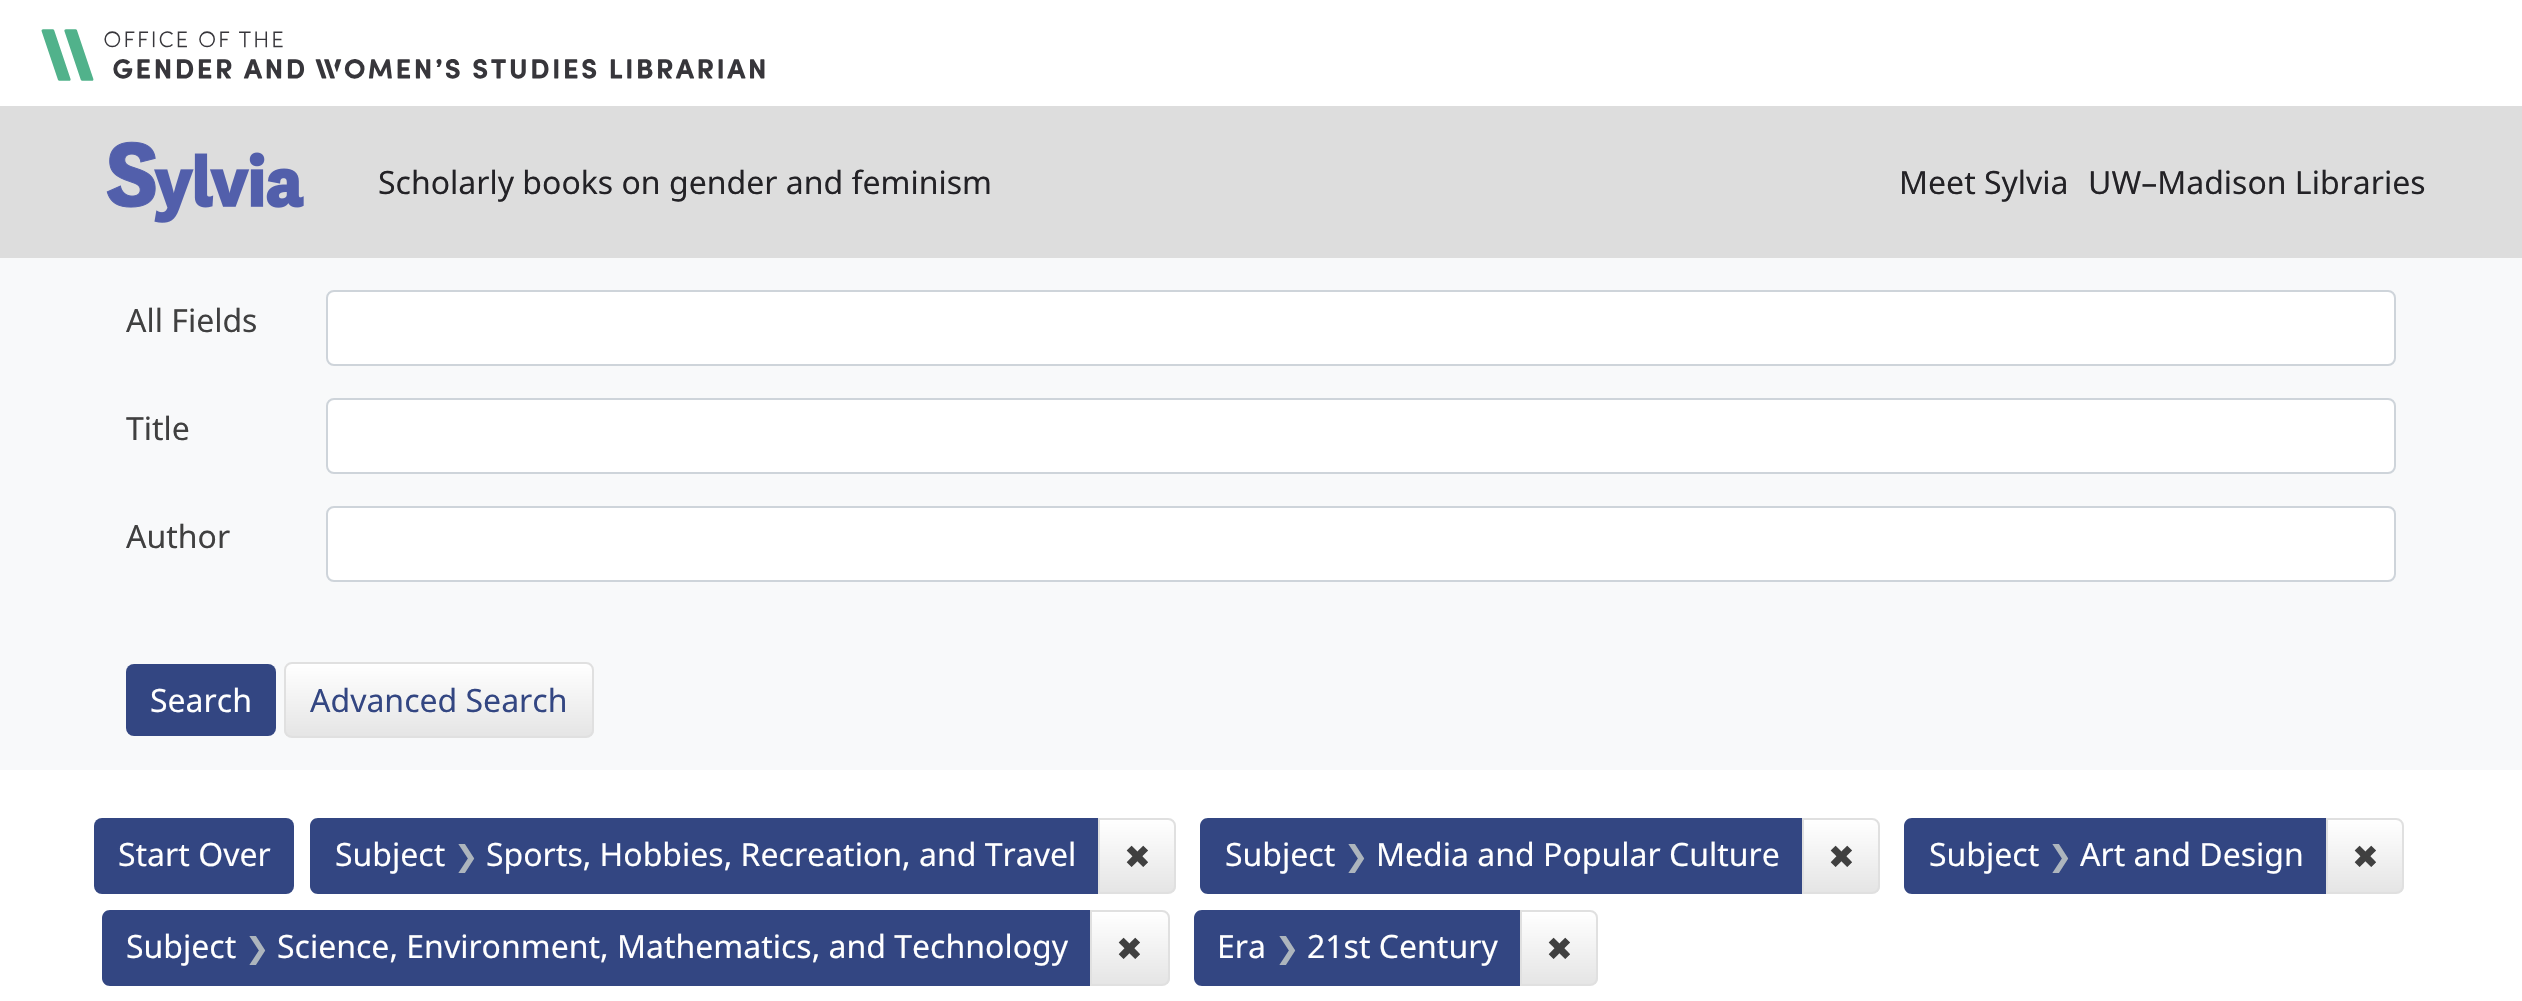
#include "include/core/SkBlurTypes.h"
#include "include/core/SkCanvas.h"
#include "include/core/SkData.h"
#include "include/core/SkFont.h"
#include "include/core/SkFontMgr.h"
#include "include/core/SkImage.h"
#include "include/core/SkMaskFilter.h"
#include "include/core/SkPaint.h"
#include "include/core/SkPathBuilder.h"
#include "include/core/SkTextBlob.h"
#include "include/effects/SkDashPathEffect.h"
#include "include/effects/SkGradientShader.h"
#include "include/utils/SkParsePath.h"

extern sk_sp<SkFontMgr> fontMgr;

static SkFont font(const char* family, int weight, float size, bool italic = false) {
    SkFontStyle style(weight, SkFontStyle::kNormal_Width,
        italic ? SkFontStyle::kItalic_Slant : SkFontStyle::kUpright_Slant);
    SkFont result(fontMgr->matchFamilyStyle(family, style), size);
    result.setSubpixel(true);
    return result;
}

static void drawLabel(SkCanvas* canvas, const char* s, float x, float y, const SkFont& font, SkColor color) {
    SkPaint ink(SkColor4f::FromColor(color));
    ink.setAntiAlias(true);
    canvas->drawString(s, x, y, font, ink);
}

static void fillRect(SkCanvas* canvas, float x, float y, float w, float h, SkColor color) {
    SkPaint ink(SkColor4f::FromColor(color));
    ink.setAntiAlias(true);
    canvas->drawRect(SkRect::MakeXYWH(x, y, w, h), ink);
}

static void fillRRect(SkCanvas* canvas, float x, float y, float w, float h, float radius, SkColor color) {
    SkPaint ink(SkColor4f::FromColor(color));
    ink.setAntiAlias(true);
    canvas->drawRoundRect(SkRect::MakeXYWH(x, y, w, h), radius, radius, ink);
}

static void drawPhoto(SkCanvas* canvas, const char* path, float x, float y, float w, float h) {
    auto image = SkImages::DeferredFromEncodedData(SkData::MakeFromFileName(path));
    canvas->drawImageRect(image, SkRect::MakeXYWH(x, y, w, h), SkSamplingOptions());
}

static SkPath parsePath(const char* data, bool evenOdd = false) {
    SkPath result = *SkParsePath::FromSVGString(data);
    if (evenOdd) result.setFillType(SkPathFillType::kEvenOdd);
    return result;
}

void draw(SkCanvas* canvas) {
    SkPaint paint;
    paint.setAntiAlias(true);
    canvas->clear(0xFFFFFFFF);
    drawPhoto(canvas, "assets/img1.png", 41, 29, 724, 52);
    fillRect(canvas, 0, 106, 2522, 152, 0xFFDDDDDD);
    drawPhoto(canvas, "assets/img2.png", 106, 141, 198, 82);
    SkFont font1 = font("Noto Sans", 400, 32);
    drawLabel(canvas, "Scholarly books on gender and feminism", 378, 194, font1, 0xFF232226);
    drawLabel(canvas, "Meet Sylvia", 1899, 194, font1, 0xFF232226);
    drawLabel(canvas, "UW–Madison Libraries", 2088, 194, font1, 0xFF232226);
    fillRect(canvas, 0, 258, 2522, 512, 0xFFF8F9FA);
    drawLabel(canvas, "All Fields", 126, 332, font1, 0xFF404040);
    paint.setColor(0xFFFFFFFF);
    canvas->drawRoundRect(SkRect::MakeXYWH(327, 291, 2068, 74), 7, 7, paint);
    paint.setStroke(true);
    paint.setStrokeWidth(2);
    paint.setColor(0xFFCED4DA);
    canvas->drawRoundRect(SkRect::MakeXYWH(327, 291, 2068, 74), 7, 7, paint);
    drawLabel(canvas, "Title", 126, 440, font1, 0xFF404040);
    paint.setStroke(false);
    paint.setColor(0xFFFFFFFF);
    canvas->drawRoundRect(SkRect::MakeXYWH(327, 399, 2068, 74), 7, 7, paint);
    paint.setStroke(true);
    paint.setColor(0xFFCED4DA);
    canvas->drawRoundRect(SkRect::MakeXYWH(327, 399, 2068, 74), 7, 7, paint);
    drawLabel(canvas, "Author", 126, 548, font1, 0xFF404040);
    paint.setStroke(false);
    paint.setColor(0xFFFFFFFF);
    canvas->drawRoundRect(SkRect::MakeXYWH(327, 507, 2068, 74), 7, 7, paint);
    paint.setStroke(true);
    paint.setColor(0xFFCED4DA);
    canvas->drawRoundRect(SkRect::MakeXYWH(327, 507, 2068, 74), 7, 7, paint);
    fillRRect(canvas, 126, 664, 150, 72, 8, 0xFF334682);
    drawLabel(canvas, "Search", 150, 712, font1, 0xFFFFFFFF);
    canvas->save();
    canvas->clipPath(parsePath("M292 662H586C590.5 662 594 665.5 594 670V730C594 734.5 590.5 738 586 738H292C287.5 738 284 734.5 284 730V670C284 665.5 287.5 662 292 662Z"), true);
    paint.setStroke(false);
    {
        const SkColor colors[] = {0xFFFFFFFF, 0xFFE5E5E5};
        const float stops[] = {0, 1};
        const SkPoint ends[] = {{439, 664}, {439, 736}};
        paint.setShader(SkGradientShader::MakeLinear(ends, colors, stops, 2, SkTileMode::kClamp));
        paint.setAlpha(255);
    }
    canvas->drawRect(SkRect::MakeXYWH(284, 664, 310, 72), paint);
    canvas->restore();
    paint.setStroke(true);
    paint.setShader(nullptr);
    paint.setColor(0xFFE0E0E0);
    canvas->drawRoundRect(SkRect::MakeXYWH(285, 663, 308, 74), 7, 7, paint);
    drawLabel(canvas, "Advanced Search", 310, 712, font1, 0xFF334682);
    fillRRect(canvas, 94, 818, 200, 76, 8, 0xFF334682);
    drawLabel(canvas, "Start Over", 118, 866, font1, 0xFFFFFFFF);
    paint.setStroke(false);
    paint.setColor(0xFF334682);
    canvas->drawPath(parsePath("M318 818H1100V894H318C313.5 894 310 890.5 310 886V826C310 821.5 313.5 818 318 818Z"), paint);
    drawLabel(canvas, "Subject", 335, 866, font1, 0xFFFFFFFF);
    SkFont font2 = font("DejaVu Sans", 400, 29);
    drawLabel(canvas, "❯", 454, 866, font2, 0xFFADB5BD);
    drawLabel(canvas, "Sports, Hobbies, Recreation, and Travel", 486, 866, font1, 0xFFFFFFFF);
    canvas->save();
    canvas->clipPath(parsePath("M1098 818H1168C1172.5 818 1176 821.5 1176 826V886C1176 890.5 1172.5 894 1168 894H1098Z"), true);
    {
        const SkColor colors[] = {0xFFFFFFFF, 0xFFE5E5E5};
        const float stops[] = {0, 1};
        const SkPoint ends[] = {{1137, 820}, {1137, 892}};
        paint.setShader(SkGradientShader::MakeLinear(ends, colors, stops, 2, SkTileMode::kClamp));
        paint.setAlpha(255);
    }
    canvas->drawRect(SkRect::MakeXYWH(1100, 820, 76, 72), paint);
    canvas->restore();
    paint.setStroke(true);
    paint.setShader(nullptr);
    paint.setColor(0xFFE0E0E0);
    canvas->drawPath(parsePath("M1099 819H1168C1172 819 1175 822 1175 826V886C1175 890 1172 893 1168 893H1099Z"), paint);
    SkFont font3 = font("DejaVu Sans", 400, 32);
    drawLabel(canvas, "✖", 1124, 868, font3, 0xFF404040);
    paint.setStroke(false);
    paint.setColor(0xFF334682);
    canvas->drawPath(parsePath("M1208 818H1804V894H1208C1203.5 894 1200 890.5 1200 886V826C1200 821.5 1203.5 818 1208 818Z"), paint);
    drawLabel(canvas, "Subject", 1225, 866, font1, 0xFFFFFFFF);
    drawLabel(canvas, "❯", 1344, 866, font2, 0xFFADB5BD);
    drawLabel(canvas, "Media and Popular Culture", 1376, 866, font1, 0xFFFFFFFF);
    canvas->save();
    canvas->clipPath(parsePath("M1802 818H1872C1876.5 818 1880 821.5 1880 826V886C1880 890.5 1876.5 894 1872 894H1802Z"), true);
    {
        const SkColor colors[] = {0xFFFFFFFF, 0xFFE5E5E5};
        const float stops[] = {0, 1};
        const SkPoint ends[] = {{1841, 820}, {1841, 892}};
        paint.setShader(SkGradientShader::MakeLinear(ends, colors, stops, 2, SkTileMode::kClamp));
        paint.setAlpha(255);
    }
    canvas->drawRect(SkRect::MakeXYWH(1804, 820, 76, 72), paint);
    canvas->restore();
    paint.setStroke(true);
    paint.setShader(nullptr);
    paint.setColor(0xFFE0E0E0);
    canvas->drawPath(parsePath("M1803 819H1872C1876 819 1879 822 1879 826V886C1879 890 1876 893 1872 893H1803Z"), paint);
    drawLabel(canvas, "✖", 1828, 868, font3, 0xFF404040);
    paint.setStroke(false);
    paint.setColor(0xFF334682);
    canvas->drawPath(parsePath("M1912 818H2328V894H1912C1907.5 894 1904 890.5 1904 886V826C1904 821.5 1907.5 818 1912 818Z"), paint);
    drawLabel(canvas, "Subject", 1929, 866, font1, 0xFFFFFFFF);
    drawLabel(canvas, "❯", 2048, 866, font2, 0xFFADB5BD);
    drawLabel(canvas, "Art and Design", 2080, 866, font1, 0xFFFFFFFF);
    canvas->save();
    canvas->clipPath(parsePath("M2326 818H2396C2400.5 818 2404 821.5 2404 826V886C2404 890.5 2400.5 894 2396 894H2326Z"), true);
    {
        const SkColor colors[] = {0xFFFFFFFF, 0xFFE5E5E5};
        const float stops[] = {0, 1};
        const SkPoint ends[] = {{2365, 820}, {2365, 892}};
        paint.setShader(SkGradientShader::MakeLinear(ends, colors, stops, 2, SkTileMode::kClamp));
        paint.setAlpha(255);
    }
    canvas->drawRect(SkRect::MakeXYWH(2328, 820, 76, 72), paint);
    canvas->restore();
    paint.setStroke(true);
    paint.setShader(nullptr);
    paint.setColor(0xFFE0E0E0);
    canvas->drawPath(parsePath("M2327 819H2396C2400 819 2403 822 2403 826V886C2403 890 2400 893 2396 893H2327Z"), paint);
    drawLabel(canvas, "✖", 2352, 868, font3, 0xFF404040);
    paint.setStroke(false);
    paint.setColor(0xFF334682);
    canvas->drawPath(parsePath("M110 910H1092V986H110C105.5 986 102 982.5 102 978V918C102 913.5 105.5 910 110 910Z"), paint);
    drawLabel(canvas, "Subject", 126, 958, font1, 0xFFFFFFFF);
    drawLabel(canvas, "❯", 245, 958, font2, 0xFFADB5BD);
    drawLabel(canvas, "Science, Environment, Mathematics, and Technology", 277, 958, font1, 0xFFFFFFFF);
    canvas->save();
    canvas->clipPath(parsePath("M1090 910H1162C1166.5 910 1170 913.5 1170 918V978C1170 982.5 1166.5 986 1162 986H1090Z"), true);
    {
        const SkColor colors[] = {0xFFFFFFFF, 0xFFE5E5E5};
        const float stops[] = {0, 1};
        const SkPoint ends[] = {{1130, 912}, {1130, 984}};
        paint.setShader(SkGradientShader::MakeLinear(ends, colors, stops, 2, SkTileMode::kClamp));
        paint.setAlpha(255);
    }
    canvas->drawRect(SkRect::MakeXYWH(1092, 912, 78, 72), paint);
    canvas->restore();
    paint.setStroke(true);
    paint.setShader(nullptr);
    paint.setColor(0xFFE0E0E0);
    canvas->drawPath(parsePath("M1091 911H1162C1166 911 1169 914 1169 918V978C1169 982 1166 985 1162 985H1091Z"), paint);
    drawLabel(canvas, "✖", 1116, 960, font3, 0xFF404040);
    paint.setStroke(false);
    paint.setColor(0xFF334682);
    canvas->drawPath(parsePath("M1202 910H1522V986H1202C1197.5 986 1194 982.5 1194 978V918C1194 913.5 1197.5 910 1202 910Z"), paint);
    drawLabel(canvas, "Era", 1217, 958, font1, 0xFFFFFFFF);
    drawLabel(canvas, "❯", 1275, 958, font2, 0xFFADB5BD);
    drawLabel(canvas, "21st Century", 1307, 958, font1, 0xFFFFFFFF);
    canvas->save();
    canvas->clipPath(parsePath("M1520 910H1590C1594.5 910 1598 913.5 1598 918V978C1598 982.5 1594.5 986 1590 986H1520Z"), true);
    {
        const SkColor colors[] = {0xFFFFFFFF, 0xFFE5E5E5};
        const float stops[] = {0, 1};
        const SkPoint ends[] = {{1559, 912}, {1559, 984}};
        paint.setShader(SkGradientShader::MakeLinear(ends, colors, stops, 2, SkTileMode::kClamp));
        paint.setAlpha(255);
    }
    canvas->drawRect(SkRect::MakeXYWH(1522, 912, 76, 72), paint);
    canvas->restore();
    paint.setStroke(true);
    paint.setShader(nullptr);
    paint.setColor(0xFFE0E0E0);
    canvas->drawPath(parsePath("M1521 911H1590C1594 911 1597 914 1597 918V978C1597 982 1594 985 1590 985H1521Z"), paint);
    drawLabel(canvas, "✖", 1546, 960, font3, 0xFF404040);
}
